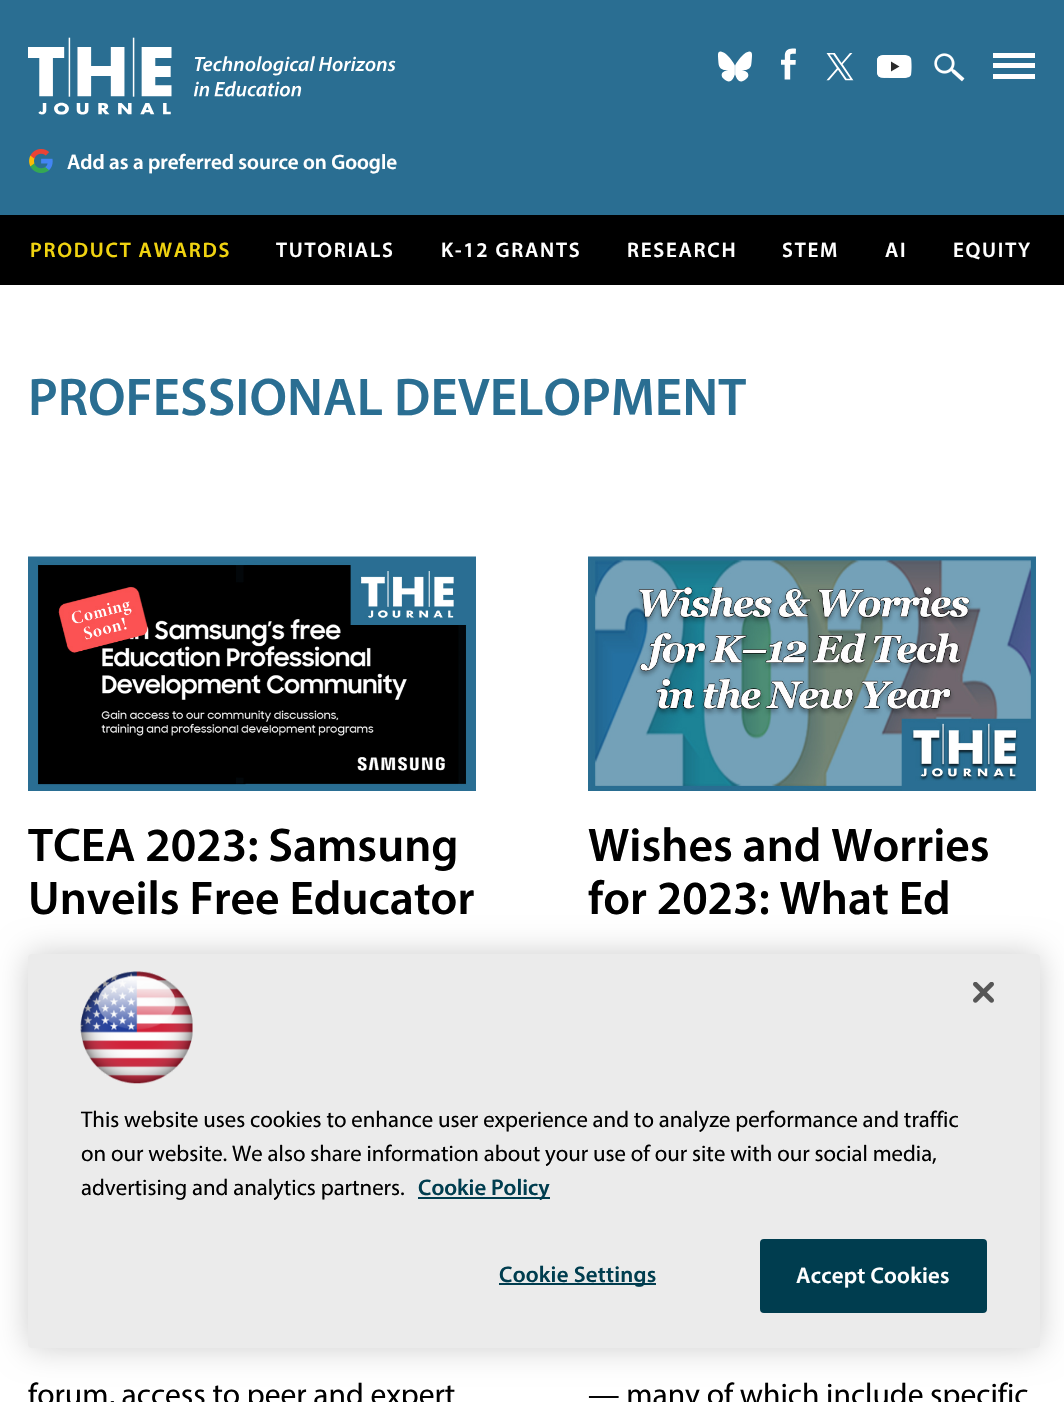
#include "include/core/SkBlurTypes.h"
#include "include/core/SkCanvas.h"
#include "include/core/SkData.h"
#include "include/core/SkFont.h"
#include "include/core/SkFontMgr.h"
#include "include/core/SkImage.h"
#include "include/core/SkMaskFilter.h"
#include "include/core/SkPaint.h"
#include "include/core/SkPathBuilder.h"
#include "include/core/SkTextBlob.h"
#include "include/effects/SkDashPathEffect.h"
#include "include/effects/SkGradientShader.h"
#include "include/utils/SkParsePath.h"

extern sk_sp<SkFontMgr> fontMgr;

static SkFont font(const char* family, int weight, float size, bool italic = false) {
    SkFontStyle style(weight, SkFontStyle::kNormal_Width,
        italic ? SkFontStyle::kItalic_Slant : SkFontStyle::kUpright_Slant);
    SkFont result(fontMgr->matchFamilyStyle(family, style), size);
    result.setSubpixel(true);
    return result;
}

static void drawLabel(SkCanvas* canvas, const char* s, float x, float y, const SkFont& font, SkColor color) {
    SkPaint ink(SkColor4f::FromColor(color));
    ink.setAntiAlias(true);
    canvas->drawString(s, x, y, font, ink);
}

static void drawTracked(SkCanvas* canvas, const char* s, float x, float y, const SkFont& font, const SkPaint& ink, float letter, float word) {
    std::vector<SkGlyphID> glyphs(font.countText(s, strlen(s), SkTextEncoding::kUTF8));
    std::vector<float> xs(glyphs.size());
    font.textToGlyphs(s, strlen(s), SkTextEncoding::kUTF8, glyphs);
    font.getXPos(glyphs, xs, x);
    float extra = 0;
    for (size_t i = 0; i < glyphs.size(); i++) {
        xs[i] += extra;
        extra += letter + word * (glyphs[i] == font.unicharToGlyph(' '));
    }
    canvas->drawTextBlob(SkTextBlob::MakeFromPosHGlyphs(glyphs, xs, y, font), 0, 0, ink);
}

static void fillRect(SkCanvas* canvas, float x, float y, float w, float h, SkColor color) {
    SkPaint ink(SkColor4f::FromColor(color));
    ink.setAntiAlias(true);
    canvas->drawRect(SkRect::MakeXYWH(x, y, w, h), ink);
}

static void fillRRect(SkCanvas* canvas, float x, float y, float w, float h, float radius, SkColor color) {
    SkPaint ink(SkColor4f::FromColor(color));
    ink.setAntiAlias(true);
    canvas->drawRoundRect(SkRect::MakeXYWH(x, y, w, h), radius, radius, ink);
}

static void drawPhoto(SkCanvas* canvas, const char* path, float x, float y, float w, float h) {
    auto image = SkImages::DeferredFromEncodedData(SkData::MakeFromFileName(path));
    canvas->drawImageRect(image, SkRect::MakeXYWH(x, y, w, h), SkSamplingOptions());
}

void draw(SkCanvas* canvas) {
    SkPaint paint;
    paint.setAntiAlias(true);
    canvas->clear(0xFFFFFFFF);
    fillRect(canvas, 0, 0, 1064, 215, 0xFF2A6E92);
    drawPhoto(canvas, "assets/img1.png", 28, 37, 368, 78);
    drawPhoto(canvas, "assets/img2.png", 718, 51, 34, 31);
    drawPhoto(canvas, "assets/img3.png", 781, 48, 15, 32);
    drawPhoto(canvas, "assets/img4.png", 826, 53, 28, 28);
    drawPhoto(canvas, "assets/img5.png", 877, 55, 35, 23);
    drawPhoto(canvas, "assets/img6.png", 934, 53, 31, 29);
    fillRect(canvas, 993, 53, 42, 5, 0xFFFFFFFF);
    fillRect(canvas, 993, 63, 42, 5, 0xFFFFFFFF);
    fillRect(canvas, 993, 74, 42, 5, 0xFFFFFFFF);
    drawPhoto(canvas, "assets/img7.png", 29, 149, 24, 24);
    SkFont font1 = font("Myriad", 600, 21);
    drawLabel(canvas, "Add as a preferred source on Google", 67, 169, font1, 0xFFFFFFFF);
    fillRect(canvas, 0, 215, 1064, 70, 0xFF000000);
    paint.setColor(0xFFF0D310);
    drawTracked(canvas, "PRODUCT AWARDS", 30, 257, font1, paint, 1.75f, 0);
    paint.setColor(0xFFFFFFFF);
    drawTracked(canvas, "TUTORIALS", 276, 257, font1, paint, 1.75f, 0);
    drawTracked(canvas, "K-12 GRANTS", 441, 257, font1, paint, 1.75f, 0);
    drawTracked(canvas, "RESEARCH", 627, 257, font1, paint, 1.75f, 0);
    drawTracked(canvas, "STEM", 782, 257, font1, paint, 1.75f, 0);
    drawTracked(canvas, "AI", 885, 257, font1, paint, 1.75f, 0);
    drawTracked(canvas, "EQUITY", 953, 257, font1, paint, 1.75f, 0);
    SkFont font2 = font("Myriad", 600, 53.25f);
    drawLabel(canvas, "PROFESSIONAL DEVELOPMENT", 28, 415, font2, 0xFF2A6E92);
    drawPhoto(canvas, "assets/img8.png", 28, 556, 448, 235);
    SkFont font3 = font("Myriad", 600, 47.5f);
    drawLabel(canvas, "TCEA 2023: Samsung", 28, 861, font3, 0xFF000000);
    drawLabel(canvas, "Unveils Free Educator", 28, 914, font3, 0xFF000000);
    SkFont font4 = font("Myriad", 400, 31.5f);
    drawLabel(canvas, "forum, access to peer and expert", 28, 1405, font4, 0xFF000000);
    drawPhoto(canvas, "assets/img9.png", 588, 556, 448, 235);
    drawLabel(canvas, "Wishes and Worries", 588, 861, font3, 0xFF000000);
    drawLabel(canvas, "for 2023: What Ed", 588, 914, font3, 0xFF000000);
    drawLabel(canvas, "— many of which include specific", 588, 1405, font4, 0xFF000000);
    paint.setColor(0x33000000);
    paint.setMaskFilter(SkMaskFilter::MakeBlur(kNormal_SkBlurStyle, 16));
    canvas->drawRoundRect(SkRect::MakeXYWH(28, 954, 1012, 394), 4, 4, paint);
    paint.setMaskFilter(nullptr);
    fillRRect(canvas, 28, 954, 1012, 394, 4, 0xFFEBEBEB);
    drawPhoto(canvas, "assets/img10.png", 973, 982, 21, 21);
    drawPhoto(canvas, "assets/img11.png", 80, 971, 113, 113);
    SkFont font5 = font("Myriad", 400, 22.75f);
    drawLabel(canvas, "This website uses cookies to enhance user experience and to analyze performance and traffic", 81, 1127, font5, 0xFF000000);
    drawLabel(canvas, "on our website. We also share information about your use of our site with our social media,", 81, 1161, font5, 0xFF000000);
    drawLabel(canvas, "advertising and analytics partners.", 81, 1195, font5, 0xFF000000);
    fillRect(canvas, 418, 1197, 132, 2, 0xFF003D4F);
    SkFont font6 = font("Myriad", 600, 22.75f);
    drawLabel(canvas, "Cookie Policy", 418, 1195, font6, 0xFF003D4F);
    fillRect(canvas, 499, 1283, 157, 2, 0xFF003D4F);
    paint.setColor(0xFF003D4F);
    drawTracked(canvas, "Cookie Settings", 499, 1282, font6, paint, 0.25f, 0);
    canvas->drawRoundRect(SkRect::MakeXYWH(761, 1240, 225, 72), 3, 3, paint);
    paint.setStroke(true);
    paint.setStrokeWidth(2);
    canvas->drawRoundRect(SkRect::MakeXYWH(761, 1240, 225, 72), 3, 3, paint);
    paint.setStroke(false);
    paint.setColor(0xFFFFFFFF);
    drawTracked(canvas, "Accept Cookies", 796, 1283, font6, paint, 0.25f, 0);
}
